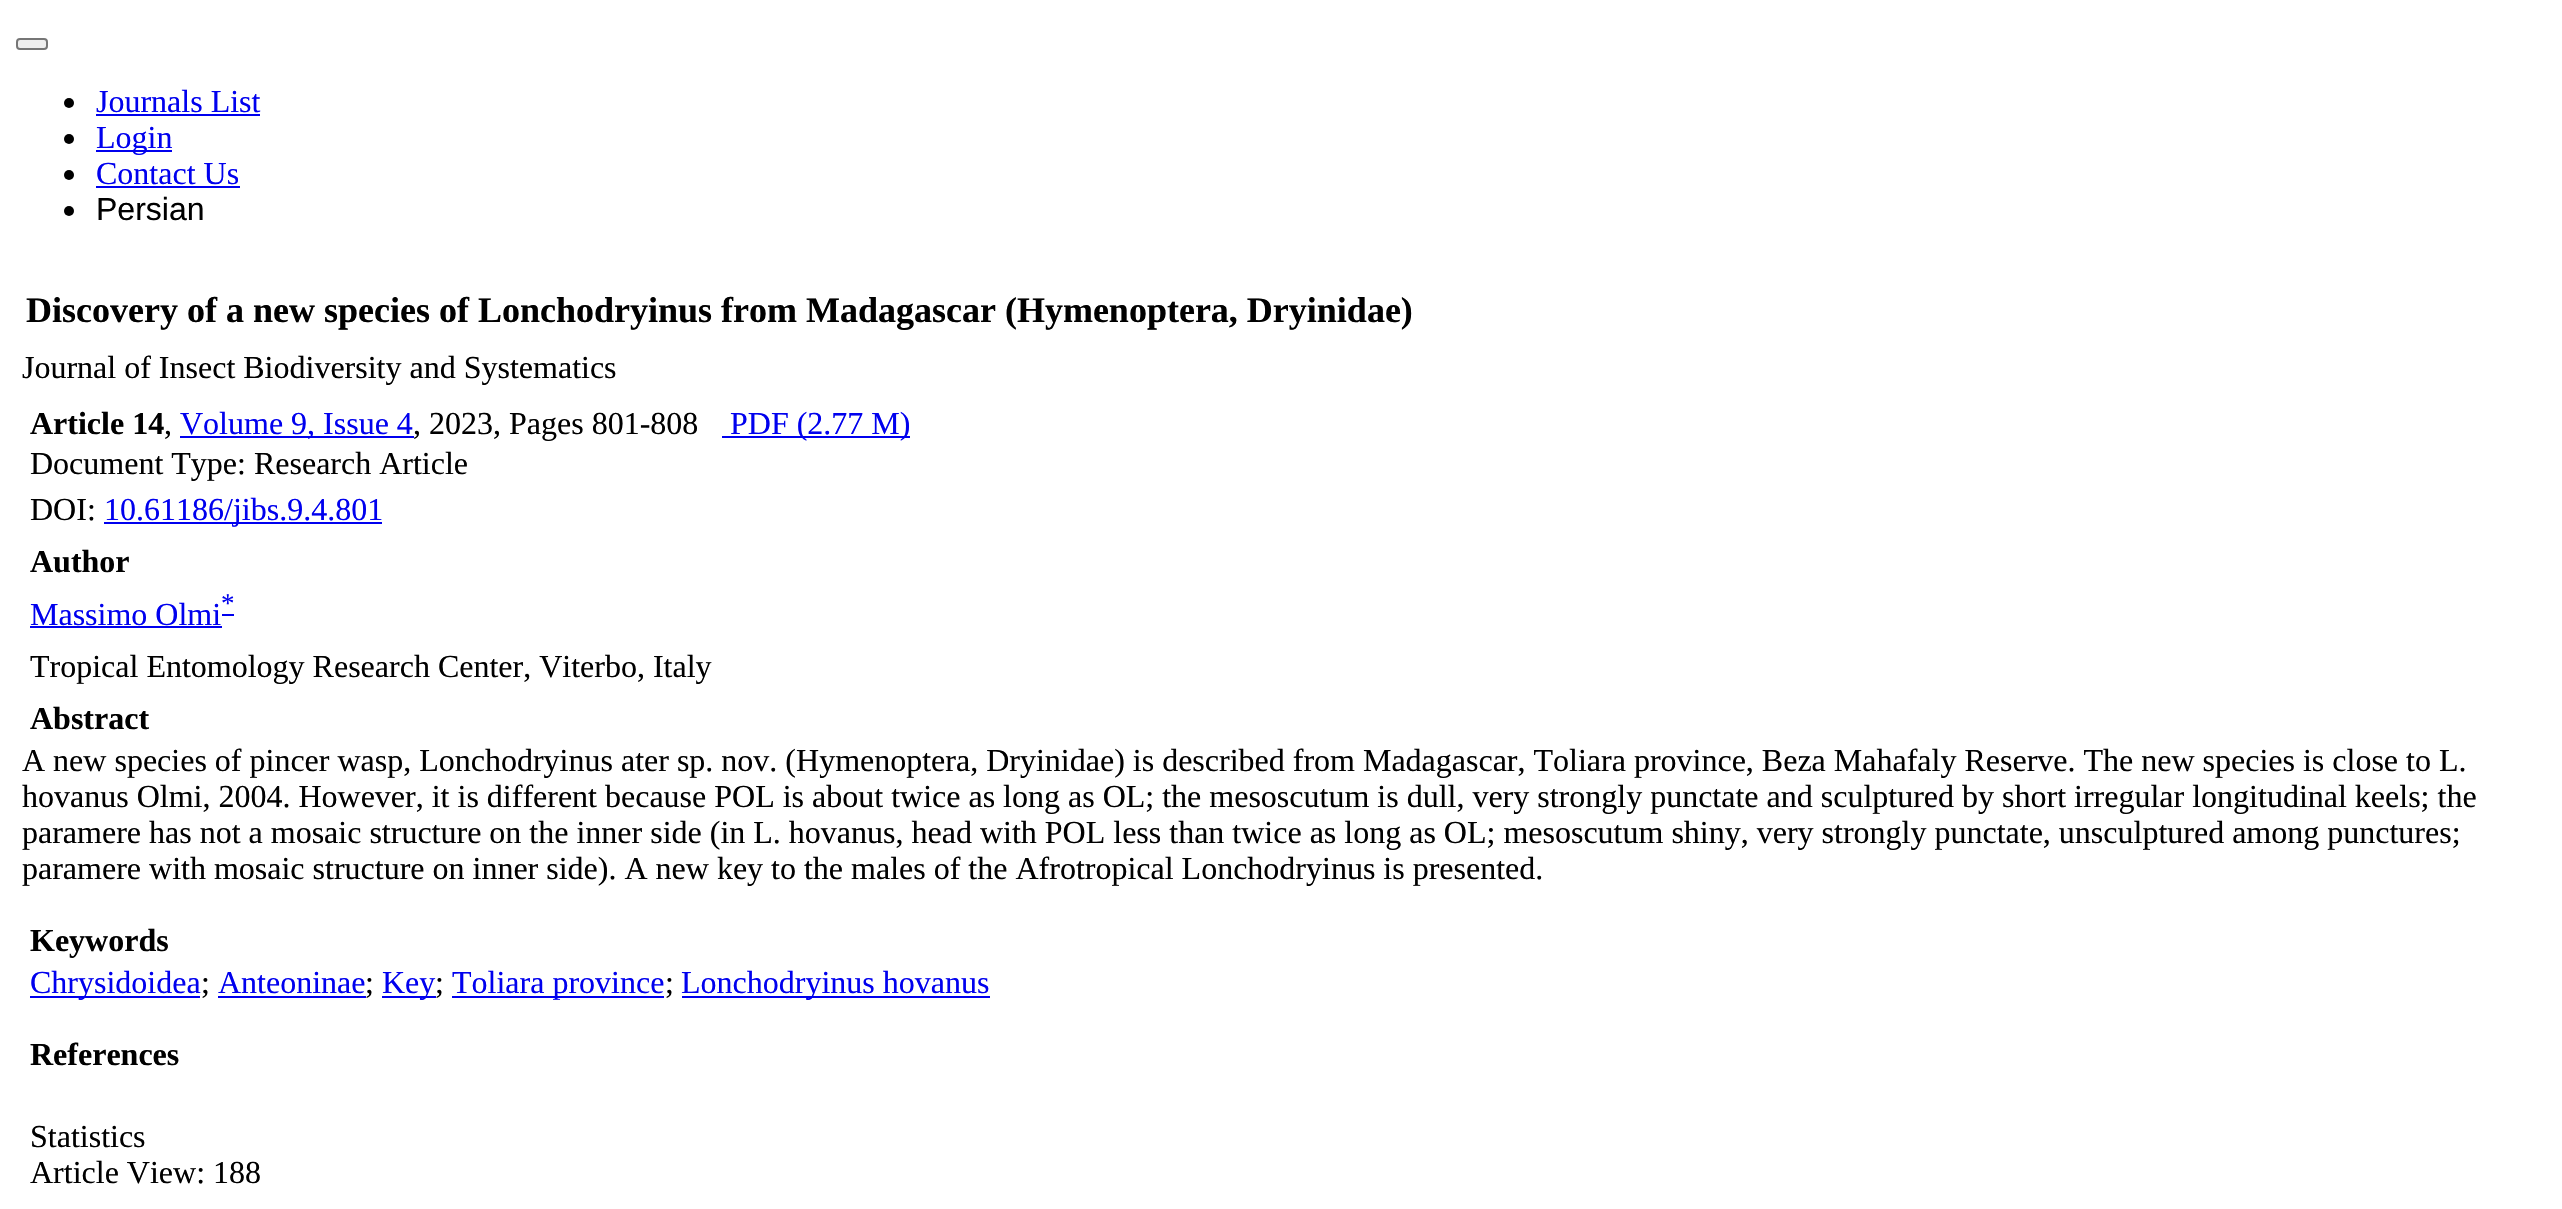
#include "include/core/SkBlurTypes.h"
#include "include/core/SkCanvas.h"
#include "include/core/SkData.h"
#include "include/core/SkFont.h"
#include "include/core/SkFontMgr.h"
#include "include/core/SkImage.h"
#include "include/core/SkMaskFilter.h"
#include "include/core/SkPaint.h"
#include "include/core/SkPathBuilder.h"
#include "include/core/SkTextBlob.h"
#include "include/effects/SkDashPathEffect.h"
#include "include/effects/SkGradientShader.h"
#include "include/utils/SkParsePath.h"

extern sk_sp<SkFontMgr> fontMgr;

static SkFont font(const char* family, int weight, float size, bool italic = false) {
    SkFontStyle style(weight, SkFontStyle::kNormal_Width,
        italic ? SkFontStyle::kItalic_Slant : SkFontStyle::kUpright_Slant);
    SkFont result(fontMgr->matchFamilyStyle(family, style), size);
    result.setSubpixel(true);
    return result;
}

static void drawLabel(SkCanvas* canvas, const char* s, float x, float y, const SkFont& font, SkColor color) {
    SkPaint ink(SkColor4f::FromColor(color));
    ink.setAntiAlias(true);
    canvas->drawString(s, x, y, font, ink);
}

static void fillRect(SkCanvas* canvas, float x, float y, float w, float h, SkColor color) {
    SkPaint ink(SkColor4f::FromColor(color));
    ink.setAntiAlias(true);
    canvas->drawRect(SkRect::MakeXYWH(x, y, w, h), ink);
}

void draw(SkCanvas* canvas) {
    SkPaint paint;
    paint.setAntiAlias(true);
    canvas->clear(0xFFFFFFFF);
    paint.setColor(0xFFEFEFEF);
    canvas->drawRoundRect(SkRect::MakeXYWH(17, 39, 30, 10), 3, 3, paint);
    paint.setStroke(true);
    paint.setStrokeWidth(2);
    paint.setColor(0xFF767676);
    canvas->drawRoundRect(SkRect::MakeXYWH(17, 39, 30, 10), 3, 3, paint);
    paint.setStroke(false);
    paint.setColor(0xFF000000);
    canvas->drawCircle(69, 103, 5, paint);
    SkFont font1 = font("Liberation Serif", 400, 32);
    drawLabel(canvas, "Journals List", 96, 112, font1, 0xFF0000EE);
    fillRect(canvas, 96, 114, 164, 2, 0xFF0000EE);
    canvas->drawCircle(69, 139, 5, paint);
    fillRect(canvas, 96, 150, 76, 2, 0xFF0000EE);
    drawLabel(canvas, "Login", 96, 148, font1, 0xFF0000EE);
    canvas->drawCircle(69, 175, 5, paint);
    drawLabel(canvas, "Contact Us", 96, 184, font1, 0xFF0000EE);
    fillRect(canvas, 96, 186, 144, 2, 0xFF0000EE);
    canvas->drawCircle(69, 211, 5, paint);
    SkFont font2 = font("Liberation Sans", 400, 32);
    drawLabel(canvas, "Persian", 96, 220, font2, 0xFF000000);
    SkFont font3 = font("Liberation Serif", 700, 36);
    drawLabel(canvas, "Discovery of a new species of Lonchodryinus from Madagascar (Hymenoptera, Dryinidae)", 26, 322, font3, 0xFF000000);
    drawLabel(canvas, "Journal of Insect Biodiversity and Systematics", 22, 378, font1, 0xFF000000);
    SkFont font4 = font("Liberation Serif", 700, 32);
    drawLabel(canvas, "Article 14", 30, 434, font4, 0xFF000000);
    drawLabel(canvas, ",", 164, 434, font1, 0xFF000000);
    fillRect(canvas, 180, 436, 234, 2, 0xFF0000EE);
    drawLabel(canvas, "Volume 9, Issue 4", 180, 434, font1, 0xFF0000EE);
    drawLabel(canvas, ", 2023, Pages 801-808", 413, 434, font1, 0xFF000000);
    fillRect(canvas, 722, 436, 188, 2, 0xFF0000EE);
    drawLabel(canvas, "PDF (2.77 M)", 730, 434, font1, 0xFF0000EE);
    drawLabel(canvas, "Document Type: Research Article", 30, 474, font1, 0xFF000000);
    drawLabel(canvas, "DOI:", 30, 520, font1, 0xFF000000);
    fillRect(canvas, 104, 522, 278, 2, 0xFF0000EE);
    drawLabel(canvas, "10.61186/jibs.9.4.801", 104, 520, font1, 0xFF0000EE);
    drawLabel(canvas, "Author", 30, 572, font4, 0xFF000000);
    SkFont font5 = font("Liberation Serif", 400, 27);
    drawLabel(canvas, "*", 221, 612, font5, 0xFF0000EE);
    drawLabel(canvas, "Massimo Olmi", 30, 625, font1, 0xFF0000EE);
    fillRect(canvas, 30, 626, 192, 2, 0xFF0000EE);
    fillRect(canvas, 222, 614, 12, 2, 0xFF0000EE);
    drawLabel(canvas, "Tropical Entomology Research Center, Viterbo, Italy", 30, 677, font1, 0xFF000000);
    drawLabel(canvas, "Abstract", 30, 729, font4, 0xFF000000);
    drawLabel(canvas, "A new species of pincer wasp, Lonchodryinus ater sp. nov. (Hymenoptera, Dryinidae) is described from Madagascar, Toliara province, Beza Mahafaly Reserve. The new species is close to L.", 22, 771, font1, 0xFF000000);
    drawLabel(canvas, "hovanus Olmi, 2004. However, it is different because POL is about twice as long as OL; the mesoscutum is dull, very strongly punctate and sculptured by short irregular longitudinal keels; the", 22, 807, font1, 0xFF000000);
    drawLabel(canvas, "paramere has not a mosaic structure on the inner side (in L. hovanus, head with POL less than twice as long as OL; mesoscutum shiny, very strongly punctate, unsculptured among punctures;", 22, 843, font1, 0xFF000000);
    drawLabel(canvas, "paramere with mosaic structure on inner side). A new key to the males of the Afrotropical Lonchodryinus is presented.", 22, 879, font1, 0xFF000000);
    drawLabel(canvas, "Keywords", 30, 951, font4, 0xFF000000);
    fillRect(canvas, 30, 996, 170, 2, 0xFF0000EE);
    drawLabel(canvas, "Chrysidoidea", 30, 993, font1, 0xFF0000EE);
    drawLabel(canvas, ";", 201, 993, font1, 0xFF000000);
    drawLabel(canvas, "Anteoninae", 218, 993, font1, 0xFF0000EE);
    fillRect(canvas, 218, 996, 148, 2, 0xFF0000EE);
    drawLabel(canvas, ";", 365, 993, font1, 0xFF000000);
    fillRect(canvas, 382, 996, 54, 2, 0xFF0000EE);
    drawLabel(canvas, "Key", 382, 993, font1, 0xFF0000EE);
    drawLabel(canvas, ";", 435, 993, font1, 0xFF000000);
    fillRect(canvas, 452, 996, 212, 2, 0xFF0000EE);
    drawLabel(canvas, "Toliara province", 452, 993, font1, 0xFF0000EE);
    drawLabel(canvas, ";", 665, 993, font1, 0xFF000000);
    fillRect(canvas, 682, 996, 308, 2, 0xFF0000EE);
    drawLabel(canvas, "Lonchodryinus hovanus", 681, 993, font1, 0xFF0000EE);
    drawLabel(canvas, "References", 30, 1065, font4, 0xFF000000);
    drawLabel(canvas, "Statistics", 30, 1147, font1, 0xFF000000);
    drawLabel(canvas, "Article View: 188", 30, 1183, font1, 0xFF000000);
}
